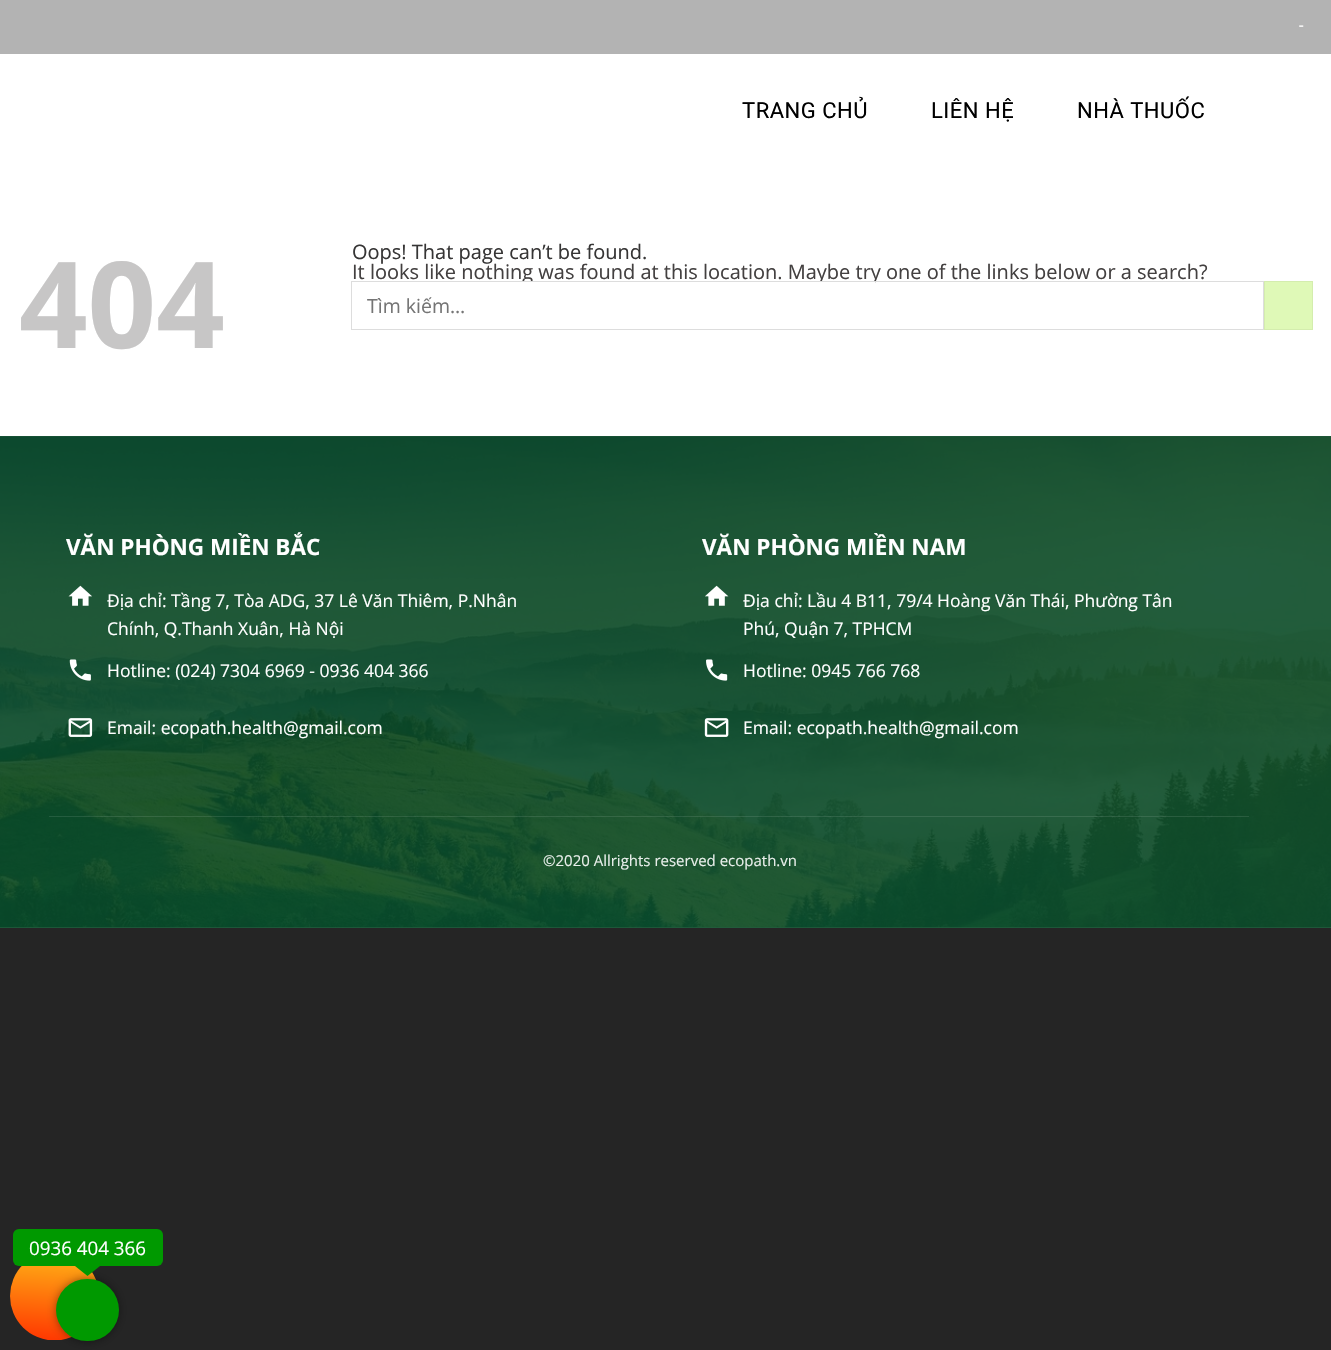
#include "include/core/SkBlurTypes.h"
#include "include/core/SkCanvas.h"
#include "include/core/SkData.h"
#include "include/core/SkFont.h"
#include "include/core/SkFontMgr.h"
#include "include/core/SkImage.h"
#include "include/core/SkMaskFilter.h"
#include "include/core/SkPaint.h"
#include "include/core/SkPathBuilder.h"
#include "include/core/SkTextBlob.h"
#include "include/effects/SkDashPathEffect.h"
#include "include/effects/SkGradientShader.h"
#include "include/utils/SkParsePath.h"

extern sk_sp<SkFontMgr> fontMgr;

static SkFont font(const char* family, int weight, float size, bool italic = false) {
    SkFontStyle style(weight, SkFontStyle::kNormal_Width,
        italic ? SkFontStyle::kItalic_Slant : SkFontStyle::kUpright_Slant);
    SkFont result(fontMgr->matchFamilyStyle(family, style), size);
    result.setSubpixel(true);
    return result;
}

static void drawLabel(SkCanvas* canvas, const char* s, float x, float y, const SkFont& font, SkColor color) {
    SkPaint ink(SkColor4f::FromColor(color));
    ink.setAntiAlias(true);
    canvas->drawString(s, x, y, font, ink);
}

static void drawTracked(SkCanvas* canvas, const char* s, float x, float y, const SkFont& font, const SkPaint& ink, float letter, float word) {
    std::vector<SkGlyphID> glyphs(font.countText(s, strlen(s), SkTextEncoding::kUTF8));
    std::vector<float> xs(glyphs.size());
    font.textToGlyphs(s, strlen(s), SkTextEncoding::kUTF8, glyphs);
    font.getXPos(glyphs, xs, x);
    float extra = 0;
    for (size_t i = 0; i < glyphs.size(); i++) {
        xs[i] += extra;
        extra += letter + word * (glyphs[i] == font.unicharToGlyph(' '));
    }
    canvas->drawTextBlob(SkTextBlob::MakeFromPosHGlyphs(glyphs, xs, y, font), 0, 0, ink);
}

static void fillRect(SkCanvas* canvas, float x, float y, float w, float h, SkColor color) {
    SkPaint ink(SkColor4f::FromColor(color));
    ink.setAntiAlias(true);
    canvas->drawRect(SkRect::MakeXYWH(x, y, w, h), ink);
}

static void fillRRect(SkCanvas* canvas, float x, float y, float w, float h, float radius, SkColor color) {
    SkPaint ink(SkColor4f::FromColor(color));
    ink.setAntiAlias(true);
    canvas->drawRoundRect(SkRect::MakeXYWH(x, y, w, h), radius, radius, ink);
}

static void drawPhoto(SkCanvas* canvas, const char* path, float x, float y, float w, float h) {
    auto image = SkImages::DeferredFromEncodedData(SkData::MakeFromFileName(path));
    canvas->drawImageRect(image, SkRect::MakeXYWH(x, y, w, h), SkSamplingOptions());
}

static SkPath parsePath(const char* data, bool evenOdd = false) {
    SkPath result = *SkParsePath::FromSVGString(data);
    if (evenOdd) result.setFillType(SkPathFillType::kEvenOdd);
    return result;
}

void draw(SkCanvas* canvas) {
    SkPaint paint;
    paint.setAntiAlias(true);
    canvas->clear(0xFF252525);
    fillRect(canvas, 0, 54, 1331, 382, 0xFFFFFFFF);
    fillRect(canvas, 0, 436, 1331, 492, 0xFF225C3D);
    fillRect(canvas, 0, 0, 1331, 54, 0xFFB3B3B3);
    SkFont font1 = font("Roboto", 400, 16);
    drawLabel(canvas, "-", 1299, 31, font1, 0xFFFFFFFF);
    SkFont font2 = font("Roboto", 400, 22);
    paint.setColor(0xFF000000);
    drawTracked(canvas, "TRANG CHỦ", 742, 118, font2, paint, 0.5f, 0);
    drawTracked(canvas, "LIÊN HỆ", 931, 118, font2, paint, 0.5f, 0);
    drawTracked(canvas, "NHÀ THUỐC", 1077, 118, font2, paint, 0.5f, 0);
    SkFont font3 = font("Open Sans", 700, 120);
    drawLabel(canvas, "404", 19, 348, font3, 0xFFC7C6C6);
    SkFont font4 = font("Open Sans", 400, 20);
    drawLabel(canvas, "Oops! That page can’t be found.", 352, 259, font4, 0xFF363535);
    drawLabel(canvas, "It looks like nothing was found at this location. Maybe try one of the links below or a search?", 352, 279, font4, 0xFF434040);
    fillRect(canvas, 522, 282, 353, 2, 0xFFFFFFFF);
    paint.setStroke(true);
    paint.setStrokeWidth(1);
    paint.setColor(0xFFDDDDDD);
    canvas->drawRect(SkRect::MakeXYWH(351.5f, 281.5f, 912, 48), paint);
    SkFont font5 = font("Open Sans", 400, 19.5f);
    drawLabel(canvas, "Tìm kiếm…", 367, 313, font5, 0xFF757575);
    paint.setStroke(false);
    paint.setColor(0xFFDFF9B7);
    canvas->drawRect(SkRect::MakeXYWH(1264.5f, 281.5f, 48, 48), paint);
    paint.setStroke(true);
    paint.setColor(0xFFD4EDAE);
    canvas->drawRect(SkRect::MakeXYWH(1264.5f, 281.5f, 48, 48), paint);
    drawPhoto(canvas, "assets/img1.png", 0, 436, 1331, 492);
    SkFont font6 = font("Open Sans", 700, 22.5f);
    drawLabel(canvas, "VĂN PHÒNG MIỀN BẮC", 66, 555, font6, 0xFFFFFFFF);
    drawPhoto(canvas, "assets/img2.png", 68, 585, 24, 21);
    SkFont font7 = font("Open Sans", 400, 17.5f);
    drawLabel(canvas, "Địa chỉ: Tầng 7, Tòa ADG, 37 Lê Văn Thiêm, P.Nhân", 107, 607, font7, 0xFFFFFFFF);
    drawLabel(canvas, "Chính, Q.Thanh Xuân, Hà Nội", 107, 635, font7, 0xFFFFFFFF);
    drawPhoto(canvas, "assets/img3.png", 69, 659, 22, 22);
    drawLabel(canvas, "Hotline: (024) 7304 6969 - 0936 404 366", 107, 677, font7, 0xFFFFFFFF);
    drawPhoto(canvas, "assets/img4.png", 68, 718, 25, 19);
    drawLabel(canvas, "Email: ecopath.health@gmail.com", 107, 734, font7, 0xFFFFFFFF);
    drawLabel(canvas, "VĂN PHÒNG MIỀN NAM", 702, 555, font6, 0xFFFFFFFF);
    drawPhoto(canvas, "assets/img5.png", 705, 585, 24, 21);
    drawLabel(canvas, "Địa chỉ: Lầu 4 B11, 79/4 Hoàng Văn Thái, Phường Tân", 743, 607, font7, 0xFFFFFFFF);
    drawLabel(canvas, "Phú, Quận 7, TPHCM", 743, 635, font7, 0xFFFFFFFF);
    drawPhoto(canvas, "assets/img6.png", 706, 659, 22, 22);
    drawLabel(canvas, "Hotline: 0945 766 768", 743, 677, font7, 0xFFFFFFFF);
    drawPhoto(canvas, "assets/img7.png", 704, 718, 25, 19);
    drawLabel(canvas, "Email: ecopath.health@gmail.com", 743, 734, font7, 0xFFFFFFFF);
    fillRect(canvas, 49, 816, 1200, 1, 0x1AFFFFFF);
    SkFont font8 = font("Open Sans", 400, 15);
    drawLabel(canvas, "©2020 Allrights reserved ecopath.vn", 543, 866, font8, 0xFFE8EEEA);
    canvas->save();
    canvas->clipRect(SkRect::MakeXYWH(10, 1251, 89, 89));
    paint.setStroke(false);
    {
        const SkColor colors[] = {0xFFFFB116, 0xFFFF3400};
        const float stops[] = {0, 1};
        const SkPoint ends[] = {{10, 1251}, {3.8f, 1340}};
        paint.setShader(SkGradientShader::MakeLinear(ends, colors, stops, 2, SkTileMode::kClamp));
        paint.setAlpha(255);
    }
    canvas->drawCircle(54.5f, 1296, 44.5f, paint);
    canvas->restore();
    paint.setShader(nullptr);
    paint.setColor(0xB3000000);
    paint.setMaskFilter(SkMaskFilter::MakeBlur(kNormal_SkBlurStyle, 6));
    canvas->drawRoundRect(SkRect::MakeXYWH(59, 1281, 57, 58), 28.5f, 28.5f, paint);
    paint.setMaskFilter(nullptr);
    fillRRect(canvas, 13, 1229, 150, 37, 6, 0xFF009900);
    SkFont font9 = font("Open Sans", 400, 18.75f);
    drawLabel(canvas, "0936 404 366", 29, 1255, font9, 0xFFFFFFFF);
    paint.setColor(0xFF009900);
    canvas->drawPath(parsePath("M75 1266H100L87.5 1276Z"), paint);
    fillRRect(canvas, 56, 1279, 63, 62, 31, 0xFF009900);
}
